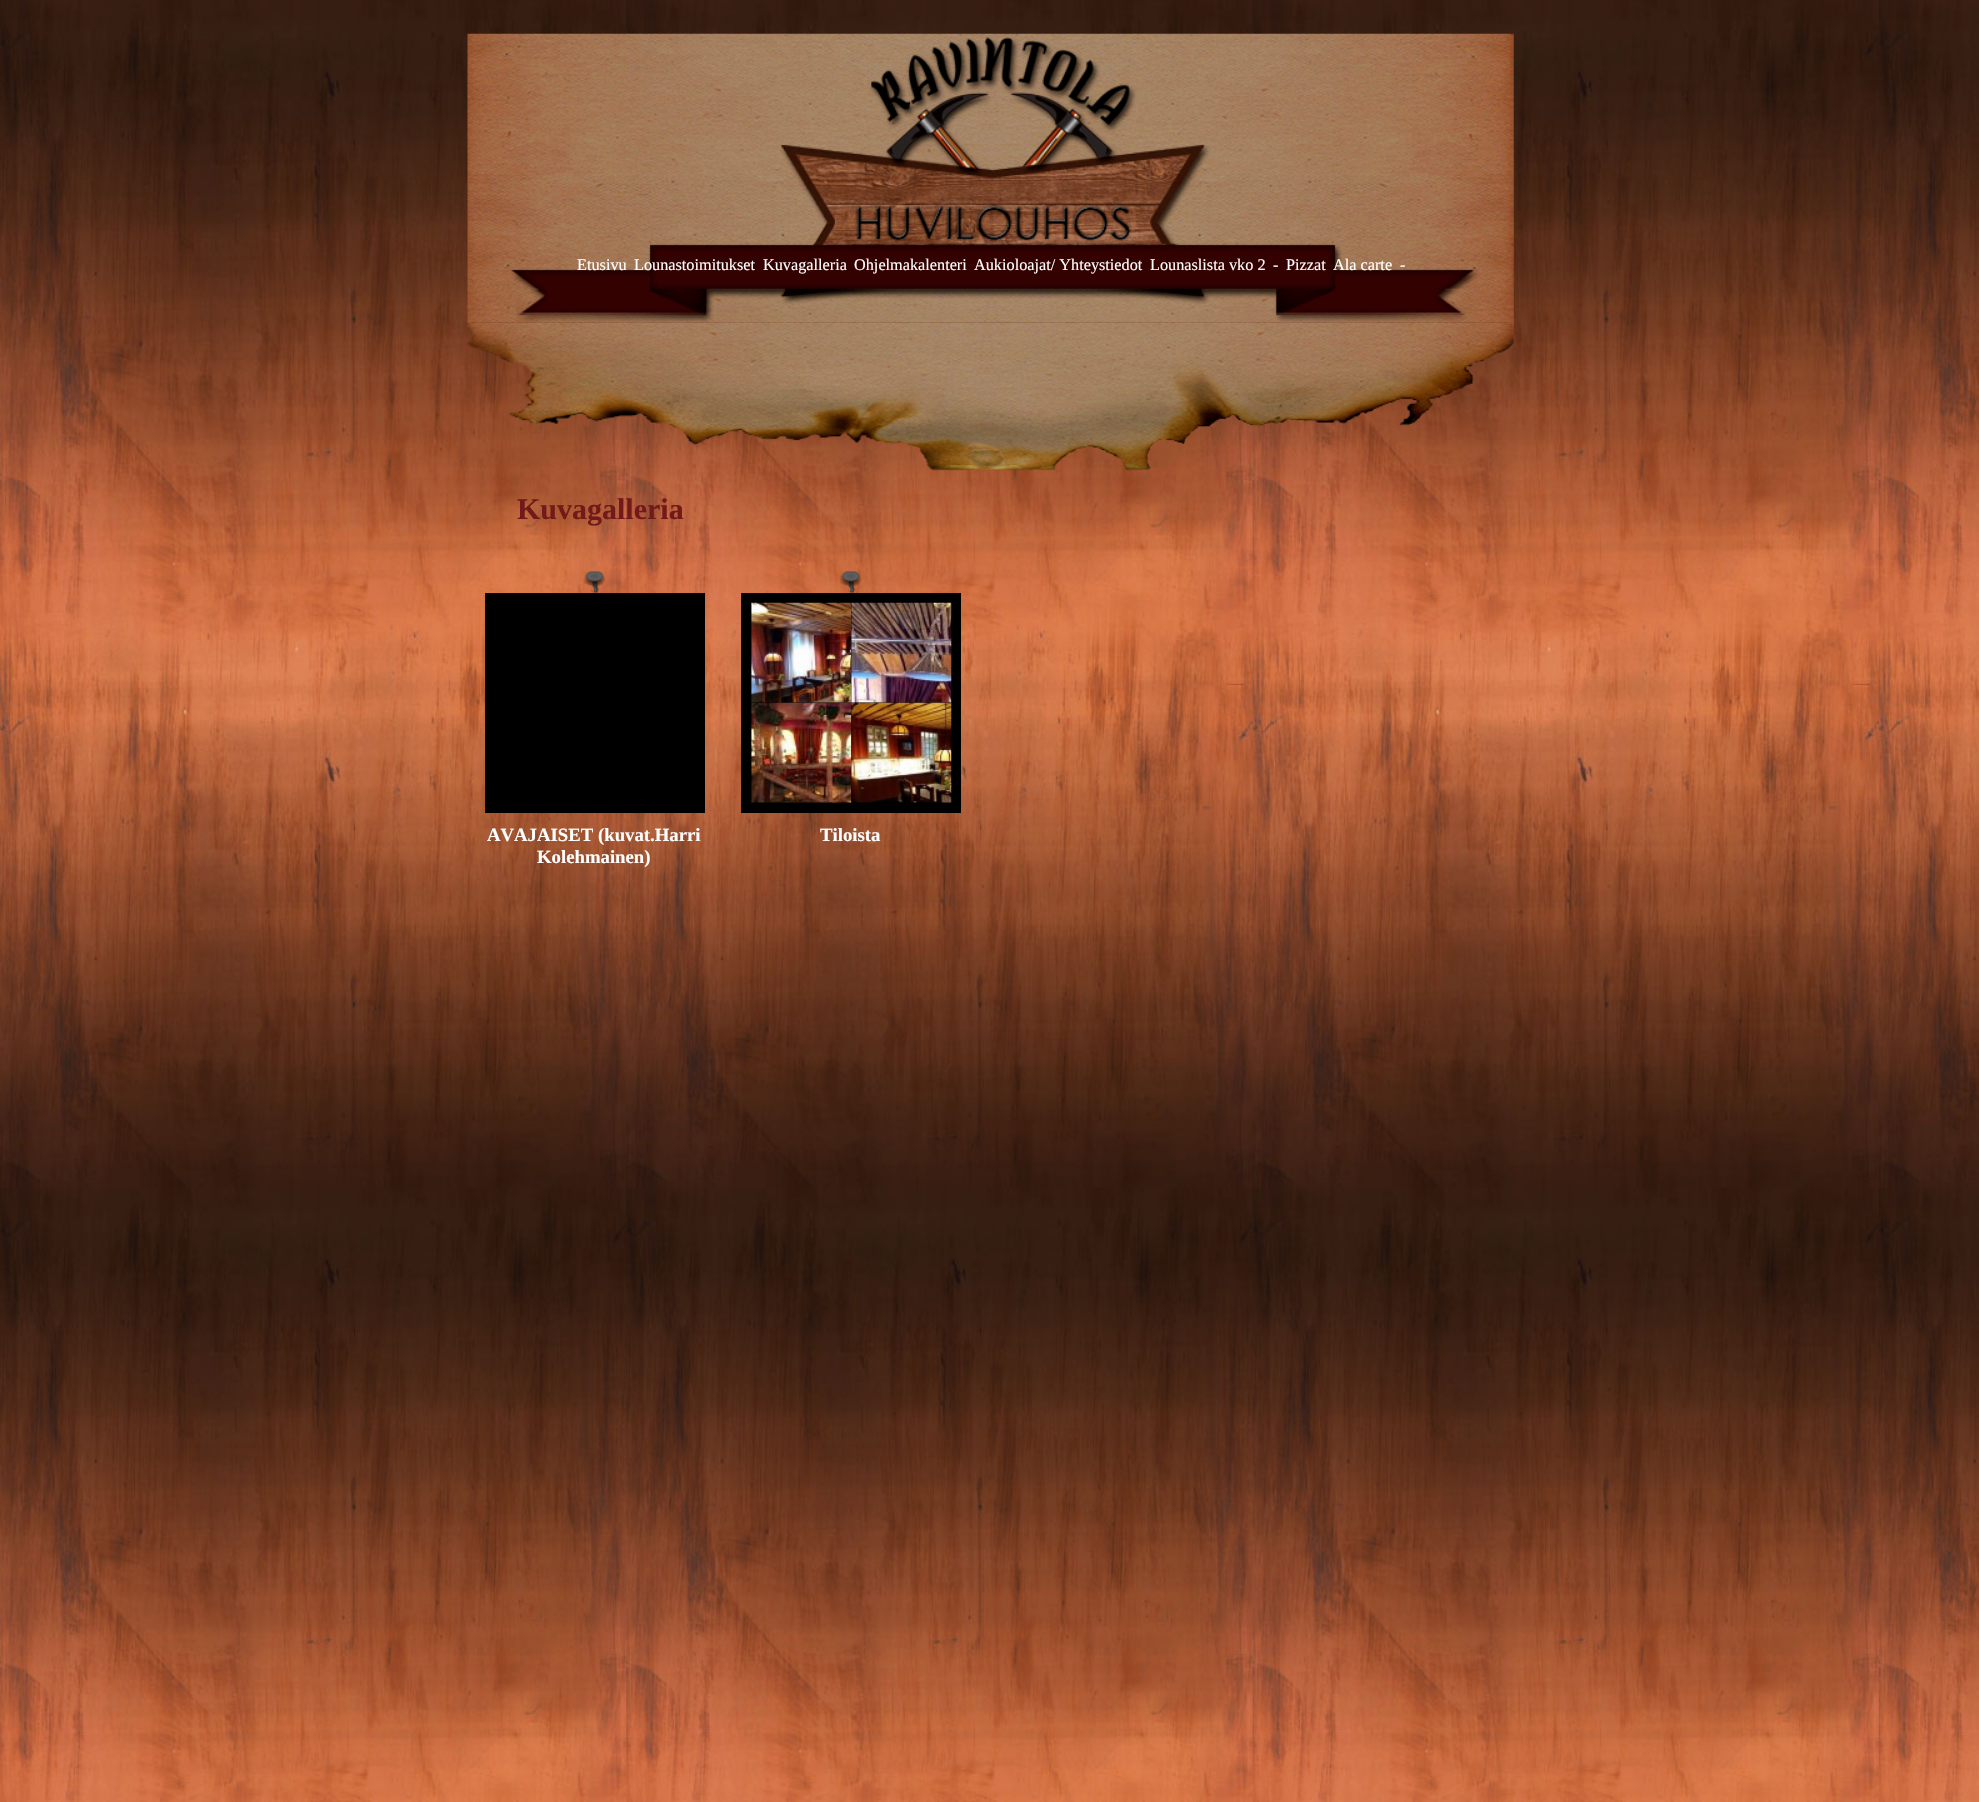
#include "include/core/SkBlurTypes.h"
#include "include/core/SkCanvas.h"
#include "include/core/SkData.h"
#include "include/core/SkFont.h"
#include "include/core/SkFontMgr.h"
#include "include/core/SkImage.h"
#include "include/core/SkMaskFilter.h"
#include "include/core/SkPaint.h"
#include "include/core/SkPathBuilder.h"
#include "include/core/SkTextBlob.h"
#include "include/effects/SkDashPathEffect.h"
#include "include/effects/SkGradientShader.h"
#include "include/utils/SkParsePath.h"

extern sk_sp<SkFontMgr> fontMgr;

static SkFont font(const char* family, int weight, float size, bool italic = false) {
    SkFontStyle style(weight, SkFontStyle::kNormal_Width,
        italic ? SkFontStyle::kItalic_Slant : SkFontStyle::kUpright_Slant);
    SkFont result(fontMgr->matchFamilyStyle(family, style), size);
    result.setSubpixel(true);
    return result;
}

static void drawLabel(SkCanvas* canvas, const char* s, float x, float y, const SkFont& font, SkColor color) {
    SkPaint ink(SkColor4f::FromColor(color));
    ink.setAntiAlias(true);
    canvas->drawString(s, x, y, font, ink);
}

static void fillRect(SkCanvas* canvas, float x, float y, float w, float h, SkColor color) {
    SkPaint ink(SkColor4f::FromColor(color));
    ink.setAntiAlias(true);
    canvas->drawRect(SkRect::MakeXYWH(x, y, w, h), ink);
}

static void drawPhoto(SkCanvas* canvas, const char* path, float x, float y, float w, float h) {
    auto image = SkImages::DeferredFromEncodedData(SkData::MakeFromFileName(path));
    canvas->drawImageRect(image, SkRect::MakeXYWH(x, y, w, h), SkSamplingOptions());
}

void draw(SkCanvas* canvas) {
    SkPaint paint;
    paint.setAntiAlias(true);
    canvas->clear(0xFFFFFFFF);
    drawPhoto(canvas, "assets/img1.png", 0, 0, 1979, 1802);
    drawPhoto(canvas, "assets/img2.png", 467, 33, 1047, 214);
    drawPhoto(canvas, "assets/img3.png", 467, 243, 1047, 47);
    SkFont font1 = font("Liberation Serif", 400, 16.25f);
    drawLabel(canvas, "Etusivu", 577, 270, font1, 0xFFFFFFFF);
    drawLabel(canvas, "Lounastoimitukset", 634, 270, font1, 0xFFFFFFFF);
    drawLabel(canvas, "Kuvagalleria", 763, 270, font1, 0xFFFFFFFF);
    drawLabel(canvas, "Ohjelmakalenteri", 854, 270, font1, 0xFFFFFFFF);
    drawLabel(canvas, "Aukioloajat/ Yhteystiedot", 974, 270, font1, 0xFFFFFFFF);
    drawLabel(canvas, "Lounaslista vko 2", 1150, 270, font1, 0xFFFFFFFF);
    drawLabel(canvas, "-", 1273, 270, font1, 0xFFFFFFFF);
    drawLabel(canvas, "Pizzat", 1286, 270, font1, 0xFFFFFFFF);
    drawLabel(canvas, "Ala carte", 1333, 270, font1, 0xFFFFFFFF);
    drawLabel(canvas, "-", 1400, 270, font1, 0xFFFFFFFF);
    drawPhoto(canvas, "assets/img4.png", 467, 288, 1047, 35);
    drawPhoto(canvas, "assets/img5.png", 467, 322, 1047, 149);
    SkFont font2 = font("Liberation Serif", 700, 30);
    drawLabel(canvas, "Kuvagalleria", 517, 519, font2, 0xFF721919);
    drawPhoto(canvas, "assets/img6.png", 583, 571, 22, 22);
    fillRect(canvas, 485, 593, 220, 220, 0xFF000000);
    SkFont font3 = font("Liberation Serif", 700, 18.75f);
    drawLabel(canvas, "AVAJAISET (kuvat.Harri", 487, 841, font3, 0xFFFFFFFF);
    drawLabel(canvas, "Kolehmainen)", 537, 863, font3, 0xFFFFFFFF);
    drawPhoto(canvas, "assets/img7.png", 840, 571, 22, 22);
    fillRect(canvas, 741, 593, 220, 220, 0xFF000000);
    drawPhoto(canvas, "assets/img8.png", 751, 602, 101, 101);
    drawPhoto(canvas, "assets/img9.png", 851, 602, 101, 101);
    drawPhoto(canvas, "assets/img10.png", 751, 702, 101, 101);
    drawPhoto(canvas, "assets/img11.png", 851, 702, 101, 101);
    drawLabel(canvas, "Tiloista", 820, 841, font3, 0xFFFFFFFF);
}
